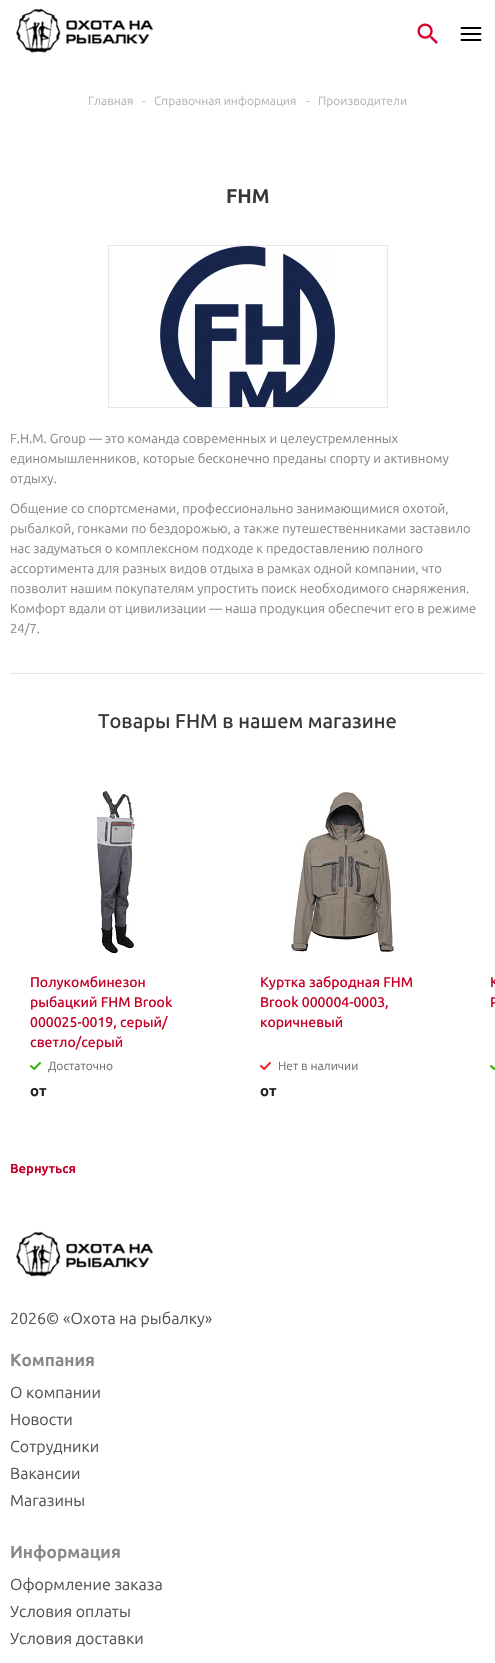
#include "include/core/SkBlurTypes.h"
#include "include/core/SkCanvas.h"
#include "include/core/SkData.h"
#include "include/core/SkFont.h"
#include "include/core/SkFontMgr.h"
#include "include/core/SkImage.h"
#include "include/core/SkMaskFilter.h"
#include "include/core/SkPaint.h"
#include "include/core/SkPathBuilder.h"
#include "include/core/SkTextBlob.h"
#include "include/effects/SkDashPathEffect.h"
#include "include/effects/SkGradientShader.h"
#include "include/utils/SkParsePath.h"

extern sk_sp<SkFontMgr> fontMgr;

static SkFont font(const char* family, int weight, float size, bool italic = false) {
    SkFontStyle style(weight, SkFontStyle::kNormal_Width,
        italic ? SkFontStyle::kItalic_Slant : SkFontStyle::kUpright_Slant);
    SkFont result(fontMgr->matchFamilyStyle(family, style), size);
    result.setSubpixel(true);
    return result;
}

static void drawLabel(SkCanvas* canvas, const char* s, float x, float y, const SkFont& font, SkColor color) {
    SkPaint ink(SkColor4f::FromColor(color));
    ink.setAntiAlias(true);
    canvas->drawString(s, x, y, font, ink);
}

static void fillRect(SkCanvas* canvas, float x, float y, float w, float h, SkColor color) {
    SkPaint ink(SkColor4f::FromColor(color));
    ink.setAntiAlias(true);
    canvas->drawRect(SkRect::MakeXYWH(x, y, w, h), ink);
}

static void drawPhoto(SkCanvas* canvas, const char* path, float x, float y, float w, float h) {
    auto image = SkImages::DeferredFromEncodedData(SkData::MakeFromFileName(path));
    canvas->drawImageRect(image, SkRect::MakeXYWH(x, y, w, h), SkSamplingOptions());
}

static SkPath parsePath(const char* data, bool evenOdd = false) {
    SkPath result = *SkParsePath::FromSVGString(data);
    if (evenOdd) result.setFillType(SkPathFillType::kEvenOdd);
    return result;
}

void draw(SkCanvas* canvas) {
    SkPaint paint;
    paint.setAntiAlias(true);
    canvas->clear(0xFFFFFFFF);
    drawPhoto(canvas, "assets/img1.png", 16, 8, 137, 45);
    drawPhoto(canvas, "assets/img2.png", 417, 23, 21, 21);
    paint.setStroke(true);
    paint.setStrokeWidth(1.8f);
    paint.setStrokeCap(SkPaint::kRound_Cap);
    paint.setStrokeJoin(SkPaint::kRound_Join);
    paint.setColor(0xFF000000);
    canvas->drawPath(parsePath("M461.5 28H480.5M461.5 34H480.5M461.5 40H480.5"), paint);
    SkFont font1 = font("Ubuntu", 400, 12);
    drawLabel(canvas, "Главная", 88, 105, font1, 0xFFB6B5B5);
    drawLabel(canvas, "-", 142, 105, font1, 0xFFB6B5B5);
    drawLabel(canvas, "Справочная информация", 154, 105, font1, 0xFFB6B5B5);
    drawLabel(canvas, "-", 306, 105, font1, 0xFFB6B5B5);
    drawLabel(canvas, "Производители", 318, 105, font1, 0xFFB6B5B5);
    SkFont font2 = font("Ubuntu", 700, 20);
    drawLabel(canvas, "FHM", 226, 203, font2, 0xFF383838);
    paint.setStrokeWidth(1);
    paint.setStrokeCap(SkPaint::kButt_Cap);
    paint.setStrokeJoin(SkPaint::kMiter_Join);
    paint.setColor(0xFFE5E5E5);
    canvas->drawRect(SkRect::MakeXYWH(108.5f, 245.5f, 279, 162), paint);
    drawPhoto(canvas, "assets/img3.png", 160, 246, 175, 161);
    SkFont font3 = font("Ubuntu", 400, 13);
    drawLabel(canvas, "F.H.M. Group — это команда современных и целеустремленных", 10, 443, font3, 0xFF888888);
    drawLabel(canvas, "единомышленников, которые бесконечно преданы спорту и активному", 10, 463, font3, 0xFF888888);
    drawLabel(canvas, "отдыху.", 10, 483, font3, 0xFF888888);
    drawLabel(canvas, "Общение со спортсменами, профессионально занимающимися охотой,", 10, 513, font3, 0xFF888888);
    drawLabel(canvas, "рыбалкой, гонками по бездорожью, а также путешественниками заставило", 10, 533, font3, 0xFF888888);
    drawLabel(canvas, "нас задуматься о комплексном подходе к предоставлению полного", 10, 553, font3, 0xFF888888);
    drawLabel(canvas, "ассортимента для разных видов отдыха в рамках одной компании, что", 10, 573, font3, 0xFF888888);
    drawLabel(canvas, "позволит нашим покупателям упростить поиск необходимого снаряжения.", 10, 593, font3, 0xFF888888);
    drawLabel(canvas, "Комфорт вдали от цивилизации — наша продукция обеспечит его в режиме", 10, 613, font3, 0xFF888888);
    drawLabel(canvas, "24/7.", 10, 633, font3, 0xFF888888);
    fillRect(canvas, 10, 673, 475, 1, 0xFFE5E5E5);
    SkFont font4 = font("Ubuntu", 500, 20);
    drawLabel(canvas, "Товары FHM в нашем магазине", 98, 728, font4, 0xFF383838);
    drawPhoto(canvas, "assets/img4.png", 94, 791, 48, 163);
    SkFont font5 = font("Ubuntu", 500, 14);
    drawLabel(canvas, "Полукомбинезон", 30, 987, font5, 0xFFC50026);
    drawLabel(canvas, "рыбацкий FHM Brook", 30, 1007, font5, 0xFFC50026);
    drawLabel(canvas, "000025-0019, серый/", 30, 1027, font5, 0xFFC50026);
    drawLabel(canvas, "светло/серый", 30, 1047, font5, 0xFFC50026);
    drawPhoto(canvas, "assets/img5.png", 30, 1062, 11, 8);
    drawLabel(canvas, "Достаточно", 48, 1070, font1, 0xFF6D6D6D);
    SkFont font6 = font("Ubuntu", 700, 15);
    drawLabel(canvas, "от", 30, 1096, font6, 0xFF1D1A1A);
    drawPhoto(canvas, "assets/img6.png", 291, 791, 105, 164);
    drawLabel(canvas, "Куртка забродная FHM", 260, 987, font5, 0xFFC50026);
    drawLabel(canvas, "Brook 000004-0003,", 260, 1007, font5, 0xFFC50026);
    drawLabel(canvas, "коричневый", 260, 1027, font5, 0xFFC50026);
    drawPhoto(canvas, "assets/img7.png", 260, 1062, 11, 8);
    drawLabel(canvas, "Нет в наличии", 278, 1070, font1, 0xFF6D6D6D);
    drawLabel(canvas, "от", 260, 1096, font6, 0xFF1D1A1A);
    drawLabel(canvas, "К", 490, 987, font5, 0xFFC50026);
    drawLabel(canvas, "P", 490, 1007, font5, 0xFFC50026);
    drawPhoto(canvas, "assets/img8.png", 490, 1065, 5, 5);
    SkFont font7 = font("Ubuntu", 700, 13);
    drawLabel(canvas, "Вернуться", 10, 1173, font7, 0xFFC50026);
    drawPhoto(canvas, "assets/img9.png", 16, 1231, 137, 46);
    SkFont font8 = font("Ubuntu", 400, 16);
    drawLabel(canvas, "2026© «Охота на рыбалку»", 10, 1324, font8, 0xFF545454);
    SkFont font9 = font("Ubuntu", 700, 17.25f);
    drawLabel(canvas, "Компания", 10, 1366, font9, 0xFF888888);
    drawLabel(canvas, "О компании", 10, 1398, font8, 0xFF545454);
    drawLabel(canvas, "Новости", 10, 1425, font8, 0xFF545454);
    drawLabel(canvas, "Сотрудники", 10, 1452, font8, 0xFF545454);
    drawLabel(canvas, "Вакансии", 10, 1479, font8, 0xFF545454);
    drawLabel(canvas, "Магазины", 10, 1506, font8, 0xFF545454);
    drawLabel(canvas, "Информация", 10, 1558, font9, 0xFF888888);
    drawLabel(canvas, "Оформление заказа", 10, 1590, font8, 0xFF545454);
    drawLabel(canvas, "Условия оплаты", 10, 1617, font8, 0xFF545454);
    drawLabel(canvas, "Условия доставки", 10, 1644, font8, 0xFF545454);
}
